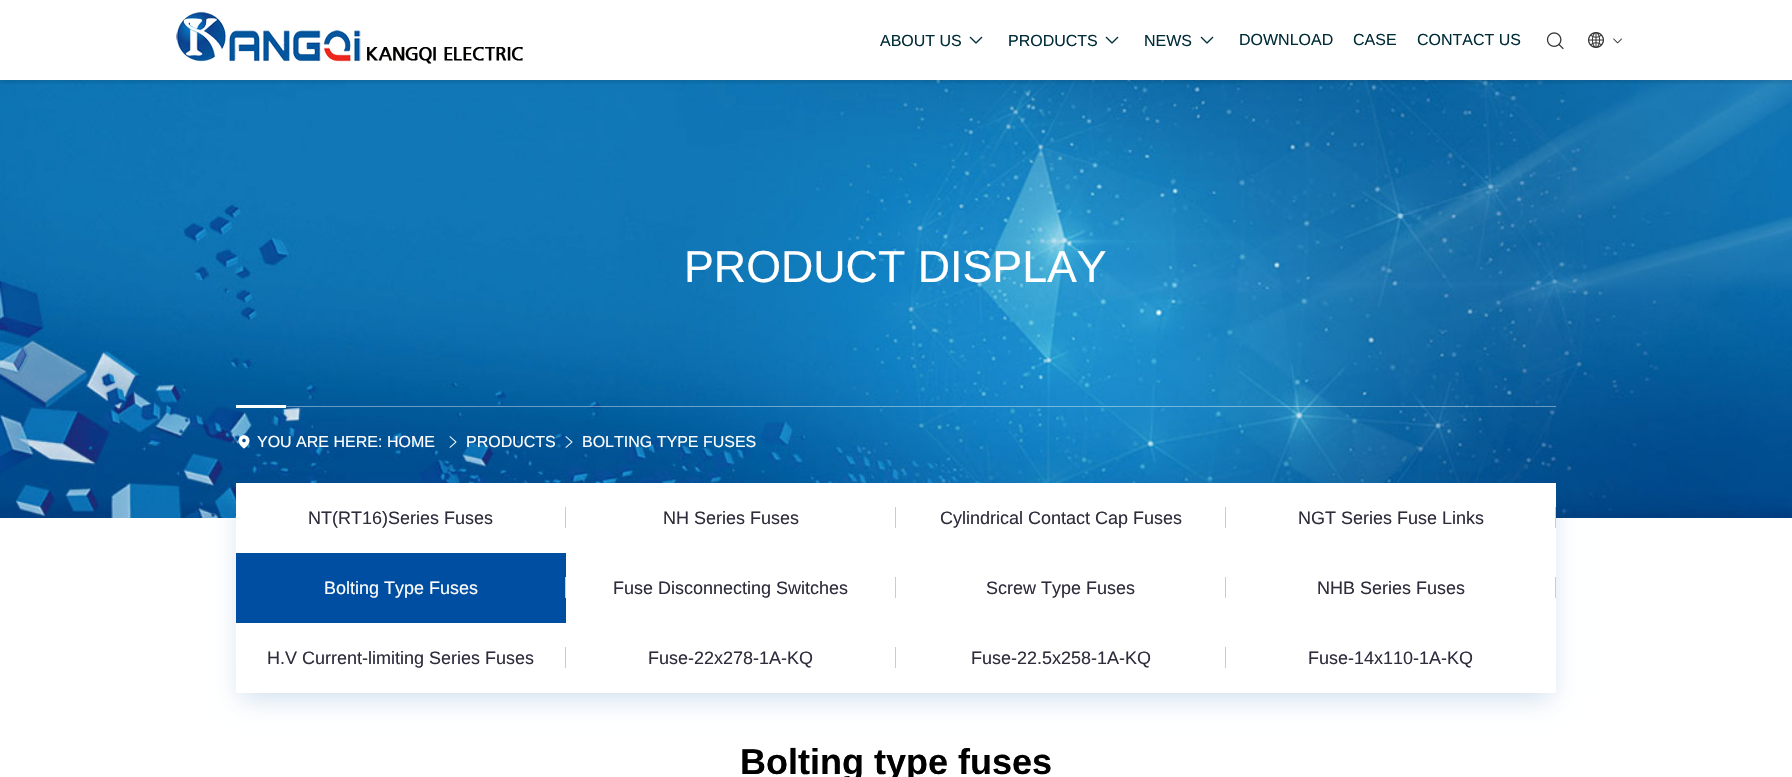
#include "include/core/SkBlurTypes.h"
#include "include/core/SkCanvas.h"
#include "include/core/SkData.h"
#include "include/core/SkFont.h"
#include "include/core/SkFontMgr.h"
#include "include/core/SkImage.h"
#include "include/core/SkMaskFilter.h"
#include "include/core/SkPaint.h"
#include "include/core/SkPathBuilder.h"
#include "include/core/SkTextBlob.h"
#include "include/effects/SkDashPathEffect.h"
#include "include/effects/SkGradientShader.h"
#include "include/utils/SkParsePath.h"

extern sk_sp<SkFontMgr> fontMgr;

static SkFont font(const char* family, int weight, float size, bool italic = false) {
    SkFontStyle style(weight, SkFontStyle::kNormal_Width,
        italic ? SkFontStyle::kItalic_Slant : SkFontStyle::kUpright_Slant);
    SkFont result(fontMgr->matchFamilyStyle(family, style), size);
    result.setSubpixel(true);
    return result;
}

static void drawLabel(SkCanvas* canvas, const char* s, float x, float y, const SkFont& font, SkColor color) {
    SkPaint ink(SkColor4f::FromColor(color));
    ink.setAntiAlias(true);
    canvas->drawString(s, x, y, font, ink);
}

static void fillRect(SkCanvas* canvas, float x, float y, float w, float h, SkColor color) {
    SkPaint ink(SkColor4f::FromColor(color));
    ink.setAntiAlias(true);
    canvas->drawRect(SkRect::MakeXYWH(x, y, w, h), ink);
}

static void drawPhoto(SkCanvas* canvas, const char* path, float x, float y, float w, float h) {
    auto image = SkImages::DeferredFromEncodedData(SkData::MakeFromFileName(path));
    canvas->drawImageRect(image, SkRect::MakeXYWH(x, y, w, h), SkSamplingOptions());
}

static SkPath parsePath(const char* data, bool evenOdd = false) {
    SkPath result = *SkParsePath::FromSVGString(data);
    if (evenOdd) result.setFillType(SkPathFillType::kEvenOdd);
    return result;
}

void draw(SkCanvas* canvas) {
    SkPaint paint;
    paint.setAntiAlias(true);
    canvas->clear(0xFFFFFFFF);
    drawPhoto(canvas, "assets/img6.png", 0, 80, 1792, 438);
    canvas->save();
    canvas->clipRect(SkRect::MakeXYWH(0, 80, 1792, 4));
    paint.setColor(0x1A000000);
    paint.setMaskFilter(SkMaskFilter::MakeBlur(kNormal_SkBlurStyle, 1.5f));
    canvas->drawRect(SkRect::MakeXYWH(0, 3, 1792, 80), paint);
    paint.setMaskFilter(nullptr);
    canvas->restore();
    drawPhoto(canvas, "assets/img1.png", 176, 11, 347, 56);
    SkFont font1 = font("Liberation Sans", 400, 16);
    drawLabel(canvas, "ABOUT US", 880, 46, font1, 0xFF002C37);
    drawPhoto(canvas, "assets/img2.png", 969, 36, 14, 8);
    drawLabel(canvas, "PRODUCTS", 1008, 46, font1, 0xFF002C37);
    drawPhoto(canvas, "assets/img2.png", 1105, 36, 14, 8);
    drawLabel(canvas, "NEWS", 1144, 46, font1, 0xFF002C37);
    drawPhoto(canvas, "assets/img2.png", 1200, 36, 14, 8);
    drawLabel(canvas, "DOWNLOAD", 1239, 45, font1, 0xFF002C37);
    drawLabel(canvas, "CASE", 1353, 45, font1, 0xFF002C37);
    drawLabel(canvas, "CONTACT US", 1417, 45, font1, 0xFF002C37);
    drawPhoto(canvas, "assets/img3.png", 1546, 32, 18, 18);
    drawPhoto(canvas, "assets/img4.png", 1588, 32, 16, 16);
    drawPhoto(canvas, "assets/img5.png", 1613, 38, 9, 6);
    SkFont font2 = font("Liberation Sans", 400, 44.75f);
    drawLabel(canvas, "PRODUCT DISPLAY", 684, 282, font2, 0xFFFFFFFF);
    fillRect(canvas, 286, 406, 1270, 1, 0x66FFFFFF);
    fillRect(canvas, 236, 405, 50, 3, 0xFFFFFFFF);
    drawPhoto(canvas, "assets/img7.png", 238, 435, 12, 14);
    drawLabel(canvas, "YOU ARE HERE:", 257, 447, font1, 0xFFFFFFFF);
    drawLabel(canvas, "HOME", 387, 447, font1, 0xFFFFFFFF);
    drawPhoto(canvas, "assets/img8.png", 449, 436, 8, 12);
    drawLabel(canvas, "PRODUCTS", 466, 447, font1, 0xFFFFFFFF);
    drawPhoto(canvas, "assets/img9.png", 565, 436, 8, 12);
    drawLabel(canvas, "BOLTING TYPE FUSES", 582, 447, font1, 0xFFFFFFFF);
    canvas->save();
    canvas->clipPath(parsePath("M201 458H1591V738H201ZM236 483H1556V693H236Z", true), true);
    paint.setColor(0x2E004EA2);
    paint.setMaskFilter(SkMaskFilter::MakeBlur(kNormal_SkBlurStyle, 12.5f));
    canvas->drawRect(SkRect::MakeXYWH(240, 497, 1312, 202), paint);
    paint.setMaskFilter(nullptr);
    canvas->restore();
    fillRect(canvas, 236, 483, 1320, 35, 0xFFFFFFFF);
    SkFont font3 = font("Liberation Sans", 400, 18);
    drawLabel(canvas, "NT(RT16)Series Fuses", 308, 524, font3, 0xFF2E2D3C);
    fillRect(canvas, 565, 507, 1, 21, 0xFFCCCCCC);
    drawLabel(canvas, "NH Series Fuses", 663, 524, font3, 0xFF2E2D3C);
    fillRect(canvas, 895, 507, 1, 21, 0xFFCCCCCC);
    drawLabel(canvas, "Cylindrical Contact Cap Fuses", 940, 524, font3, 0xFF2E2D3C);
    fillRect(canvas, 1225, 507, 1, 21, 0xFFCCCCCC);
    drawLabel(canvas, "NGT Series Fuse Links", 1298, 524, font3, 0xFF2E2D3C);
    fillRect(canvas, 1555, 507, 1, 21, 0xFFCCCCCC);
    fillRect(canvas, 236, 553, 330, 70, 0xFF004EA1);
    drawLabel(canvas, "Bolting Type Fuses", 324, 594, font3, 0xFFFFFFFF);
    fillRect(canvas, 565, 577, 1, 21, 0xFFCCCCCC);
    drawLabel(canvas, "Fuse Disconnecting Switches", 613, 594, font3, 0xFF2E2D3C);
    fillRect(canvas, 895, 577, 1, 21, 0xFFCCCCCC);
    drawLabel(canvas, "Screw Type Fuses", 986, 594, font3, 0xFF2E2D3C);
    fillRect(canvas, 1225, 577, 1, 21, 0xFFCCCCCC);
    drawLabel(canvas, "NHB Series Fuses", 1317, 594, font3, 0xFF2E2D3C);
    fillRect(canvas, 1555, 577, 1, 21, 0xFFCCCCCC);
    drawLabel(canvas, "H.V Current-limiting Series Fuses", 267, 664, font3, 0xFF2E2D3C);
    fillRect(canvas, 565, 647, 1, 21, 0xFFCCCCCC);
    drawLabel(canvas, "Fuse-22x278-1A-KQ", 648, 664, font3, 0xFF2E2D3C);
    fillRect(canvas, 895, 647, 1, 21, 0xFFCCCCCC);
    drawLabel(canvas, "Fuse-22.5x258-1A-KQ", 971, 664, font3, 0xFF2E2D3C);
    fillRect(canvas, 1225, 647, 1, 21, 0xFFCCCCCC);
    drawLabel(canvas, "Fuse-14x110-1A-KQ", 1308, 664, font3, 0xFF2E2D3C);
    SkFont font4 = font("Liberation Sans", 700, 36);
    drawLabel(canvas, "Bolting type fuses", 740, 774, font4, 0xFF000000);
}
